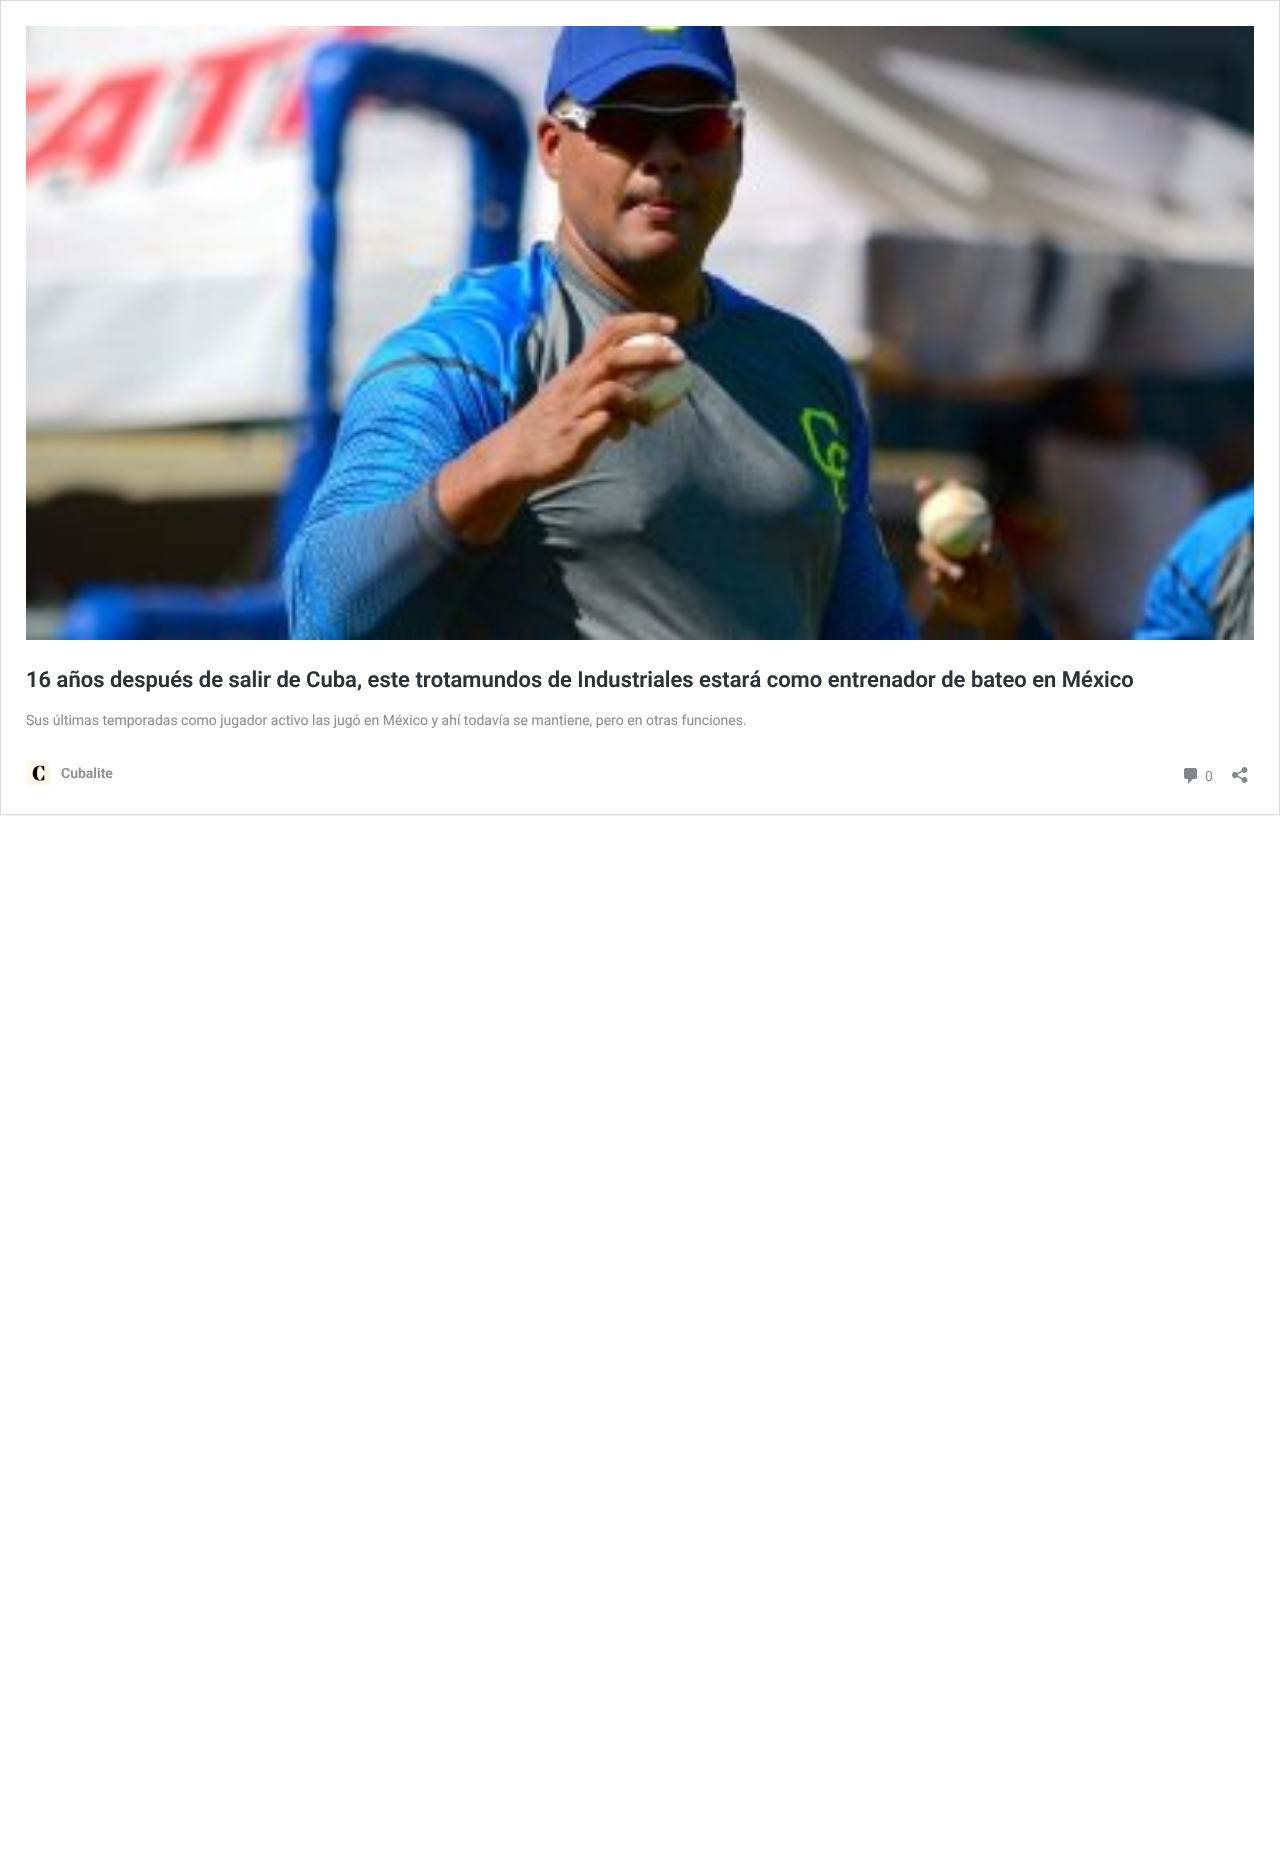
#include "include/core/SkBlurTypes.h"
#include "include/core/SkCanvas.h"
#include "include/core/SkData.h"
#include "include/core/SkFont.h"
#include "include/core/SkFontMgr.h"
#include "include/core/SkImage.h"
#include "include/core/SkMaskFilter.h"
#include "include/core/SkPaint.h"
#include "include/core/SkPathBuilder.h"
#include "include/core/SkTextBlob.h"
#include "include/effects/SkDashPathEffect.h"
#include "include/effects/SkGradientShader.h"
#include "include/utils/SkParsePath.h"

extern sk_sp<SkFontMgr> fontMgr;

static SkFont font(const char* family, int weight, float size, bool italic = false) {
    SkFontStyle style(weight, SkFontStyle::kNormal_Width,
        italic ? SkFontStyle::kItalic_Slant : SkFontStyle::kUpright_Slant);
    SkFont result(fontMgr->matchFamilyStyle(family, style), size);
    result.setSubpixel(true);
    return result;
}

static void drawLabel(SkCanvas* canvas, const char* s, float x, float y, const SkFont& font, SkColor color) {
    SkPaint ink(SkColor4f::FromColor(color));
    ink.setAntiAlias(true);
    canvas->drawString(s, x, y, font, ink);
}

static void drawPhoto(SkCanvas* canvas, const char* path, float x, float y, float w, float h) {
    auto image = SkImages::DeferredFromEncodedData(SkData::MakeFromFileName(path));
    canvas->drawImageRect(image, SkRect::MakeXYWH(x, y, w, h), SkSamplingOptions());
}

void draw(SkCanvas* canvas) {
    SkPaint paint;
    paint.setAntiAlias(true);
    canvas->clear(0xFFFFFFFF);
    canvas->save();
    canvas->clipRect(SkRect::MakeXYWH(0, 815, 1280, 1));
    paint.setColor(0x0D000000);
    paint.setMaskFilter(SkMaskFilter::MakeBlur(kNormal_SkBlurStyle, 0.5f));
    canvas->drawRect(SkRect::MakeXYWH(0, 1, 1280, 815), paint);
    paint.setMaskFilter(nullptr);
    canvas->restore();
    paint.setStroke(true);
    paint.setStrokeWidth(1);
    paint.setColor(0xFFDCDCDE);
    canvas->drawRect(SkRect::MakeXYWH(0.5f, 0.5f, 1279, 814), paint);
    drawPhoto(canvas, "assets/img1.png", 26, 26, 1228, 614);
    SkFont font1 = font("Roboto", 600, 22);
    drawLabel(canvas, "16 años después de salir de Cuba, este trotamundos de Industriales estará como entrenador de bateo en México", 26, 687, font1, 0xFF2C3338);
    SkFont font2 = font("Roboto", 400, 14);
    drawLabel(canvas, "Sus últimas temporadas como jugador activo las jugó en México y ahí todavía se mantiene, pero en otras funciones.", 26, 725, font2, 0xFF8C8F94);
    drawPhoto(canvas, "assets/img2.png", 26, 760, 25, 26);
    SkFont font3 = font("Roboto", 600, 14);
    drawLabel(canvas, "Cubalite", 61, 778, font3, 0xFF8C8F94);
    drawPhoto(canvas, "assets/img3.png", 1184, 768, 13, 16);
    drawLabel(canvas, "0", 1205, 781, font2, 0xFF8C8F94);
    drawPhoto(canvas, "assets/img4.png", 1232, 767, 16, 16);
}
